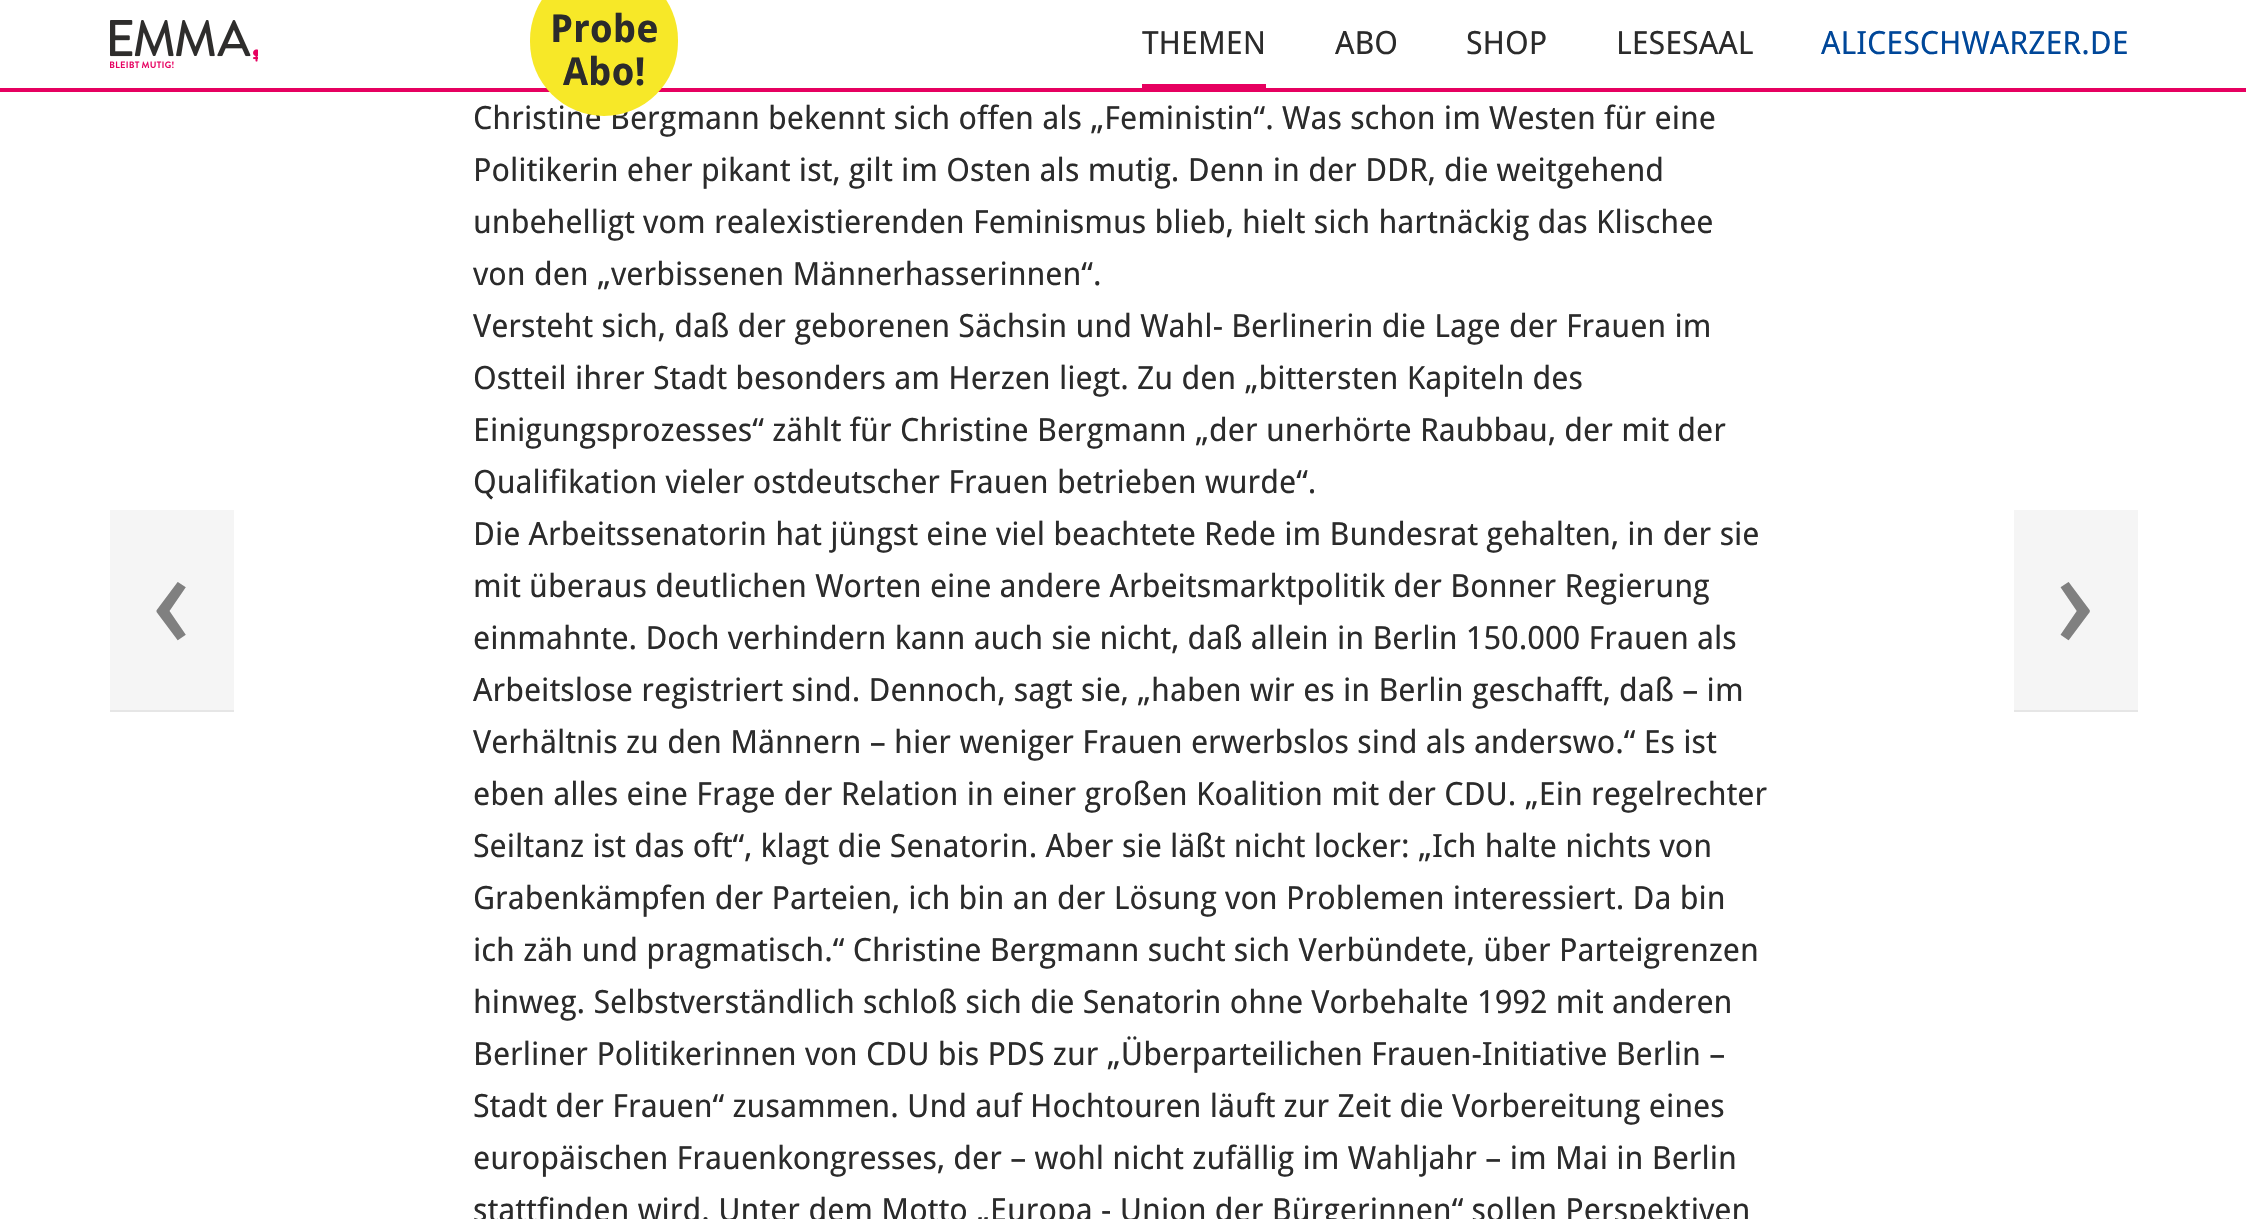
#include "include/core/SkBlurTypes.h"
#include "include/core/SkCanvas.h"
#include "include/core/SkData.h"
#include "include/core/SkFont.h"
#include "include/core/SkFontMgr.h"
#include "include/core/SkImage.h"
#include "include/core/SkMaskFilter.h"
#include "include/core/SkPaint.h"
#include "include/core/SkPathBuilder.h"
#include "include/core/SkTextBlob.h"
#include "include/effects/SkDashPathEffect.h"
#include "include/effects/SkGradientShader.h"
#include "include/utils/SkParsePath.h"

extern sk_sp<SkFontMgr> fontMgr;

static SkFont font(const char* family, int weight, float size, bool italic = false) {
    SkFontStyle style(weight, SkFontStyle::kNormal_Width,
        italic ? SkFontStyle::kItalic_Slant : SkFontStyle::kUpright_Slant);
    SkFont result(fontMgr->matchFamilyStyle(family, style), size);
    result.setSubpixel(true);
    return result;
}

static void drawLabel(SkCanvas* canvas, const char* s, float x, float y, const SkFont& font, SkColor color) {
    SkPaint ink(SkColor4f::FromColor(color));
    ink.setAntiAlias(true);
    canvas->drawString(s, x, y, font, ink);
}

static void fillRect(SkCanvas* canvas, float x, float y, float w, float h, SkColor color) {
    SkPaint ink(SkColor4f::FromColor(color));
    ink.setAntiAlias(true);
    canvas->drawRect(SkRect::MakeXYWH(x, y, w, h), ink);
}

static void fillRRect(SkCanvas* canvas, float x, float y, float w, float h, float radius, SkColor color) {
    SkPaint ink(SkColor4f::FromColor(color));
    ink.setAntiAlias(true);
    canvas->drawRoundRect(SkRect::MakeXYWH(x, y, w, h), radius, radius, ink);
}

static void drawPhoto(SkCanvas* canvas, const char* path, float x, float y, float w, float h) {
    auto image = SkImages::DeferredFromEncodedData(SkData::MakeFromFileName(path));
    canvas->drawImageRect(image, SkRect::MakeXYWH(x, y, w, h), SkSamplingOptions());
}

void draw(SkCanvas* canvas) {
    SkPaint paint;
    paint.setAntiAlias(true);
    canvas->clear(0xFFFFFFFF);
    fillRect(canvas, 0, 88, 2246, 4, 0xFFE60060);
    drawPhoto(canvas, "assets/img1.png", 110, 20, 148, 48);
    SkFont font1 = font("Droid Sans", 400, 32);
    drawLabel(canvas, "Christine Bergmann bekennt sich offen als „Feministin“. Was schon im Westen für eine", 473, 129, font1, 0xFF2B2B2B);
    fillRRect(canvas, 530, -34, 148, 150, 74, 0xFFF7E828);
    SkFont font2 = font("Droid Sans", 700, 38.5f);
    drawLabel(canvas, "Probe", 550, 42, font2, 0xFF2B2B2B);
    drawLabel(canvas, "Abo!", 563, 85, font2, 0xFF2B2B2B);
    drawLabel(canvas, "THEMEN", 1142, 54, font1, 0xFF2B2B2B);
    fillRect(canvas, 1142, 84, 124, 4, 0xFFE60060);
    drawLabel(canvas, "ABO", 1335, 54, font1, 0xFF2B2B2B);
    drawLabel(canvas, "SHOP", 1466, 54, font1, 0xFF2B2B2B);
    drawLabel(canvas, "LESESAAL", 1616, 54, font1, 0xFF2B2B2B);
    drawLabel(canvas, "ALICESCHWARZER.DE", 1821, 54, font1, 0xFF004799);
    fillRect(canvas, 110, 510, 124, 200, 0xFFF5F5F5);
    fillRect(canvas, 110, 710, 124, 2, 0xFFE6E6E6);
    SkFont font3 = font("Droid Sans", 400, 140);
    drawLabel(canvas, "‹", 151, 648, font3, 0xFF808080);
    drawLabel(canvas, "Politikerin eher pikant ist, gilt im Osten als mutig. Denn in der DDR, die weitgehend", 473, 181, font1, 0xFF2B2B2B);
    drawLabel(canvas, "unbehelligt vom realexistierenden Feminismus blieb, hielt sich hartnäckig das Klischee", 473, 233, font1, 0xFF2B2B2B);
    drawLabel(canvas, "von den „verbissenen Männerhasserinnen“.", 473, 285, font1, 0xFF2B2B2B);
    drawLabel(canvas, "Versteht sich, daß der geborenen Sächsin und Wahl- Berlinerin die Lage der Frauen im", 473, 337, font1, 0xFF2B2B2B);
    drawLabel(canvas, "Ostteil ihrer Stadt besonders am Herzen liegt. Zu den „bittersten Kapiteln des", 473, 389, font1, 0xFF2B2B2B);
    drawLabel(canvas, "Einigungsprozesses“ zählt für Christine Bergmann „der unerhörte Raubbau, der mit der", 473, 441, font1, 0xFF2B2B2B);
    drawLabel(canvas, "Qualifikation vieler ostdeutscher Frauen betrieben wurde“.", 473, 493, font1, 0xFF2B2B2B);
    drawLabel(canvas, "Die Arbeitssenatorin hat jüngst eine viel beachtete Rede im Bundesrat gehalten, in der sie", 473, 545, font1, 0xFF2B2B2B);
    drawLabel(canvas, "mit überaus deutlichen Worten eine andere Arbeitsmarktpolitik der Bonner Regierung", 473, 597, font1, 0xFF2B2B2B);
    drawLabel(canvas, "einmahnte. Doch verhindern kann auch sie nicht, daß allein in Berlin 150.000 Frauen als", 473, 649, font1, 0xFF2B2B2B);
    drawLabel(canvas, "Arbeitslose registriert sind. Dennoch, sagt sie, „haben wir es in Berlin geschafft, daß – im", 473, 701, font1, 0xFF2B2B2B);
    drawLabel(canvas, "Verhältnis zu den Männern – hier weniger Frauen erwerbslos sind als anderswo.“ Es ist", 473, 753, font1, 0xFF2B2B2B);
    drawLabel(canvas, "eben alles eine Frage der Relation in einer großen Koalition mit der CDU. „Ein regelrechter", 473, 805, font1, 0xFF2B2B2B);
    drawLabel(canvas, "Seiltanz ist das oft“, klagt die Senatorin. Aber sie läßt nicht locker: „Ich halte nichts von", 473, 857, font1, 0xFF2B2B2B);
    drawLabel(canvas, "Grabenkämpfen der Parteien, ich bin an der Lösung von Problemen interessiert. Da bin", 473, 909, font1, 0xFF2B2B2B);
    drawLabel(canvas, "ich zäh und pragmatisch.“ Christine Bergmann sucht sich Verbündete, über Parteigrenzen", 473, 961, font1, 0xFF2B2B2B);
    drawLabel(canvas, "hinweg. Selbstverständlich schloß sich die Senatorin ohne Vorbehalte 1992 mit anderen", 473, 1013, font1, 0xFF2B2B2B);
    drawLabel(canvas, "Berliner Politikerinnen von CDU bis PDS zur „Überparteilichen Frauen-Initiative Berlin –", 473, 1065, font1, 0xFF2B2B2B);
    drawLabel(canvas, "Stadt der Frauen“ zusammen. Und auf Hochtouren läuft zur Zeit die Vorbereitung eines", 473, 1117, font1, 0xFF2B2B2B);
    drawLabel(canvas, "europäischen Frauenkongresses, der – wohl nicht zufällig im Wahljahr – im Mai in Berlin", 473, 1169, font1, 0xFF2B2B2B);
    drawLabel(canvas, "stattfinden wird. Unter dem Motto „Europa - Union der Bürgerinnen“ sollen Perspektiven", 473, 1221, font1, 0xFF2B2B2B);
    fillRect(canvas, 2014, 510, 124, 200, 0xFFF5F5F5);
    fillRect(canvas, 2014, 710, 124, 2, 0xFFE6E6E6);
    drawLabel(canvas, "›", 2055, 648, font3, 0xFF808080);
}
